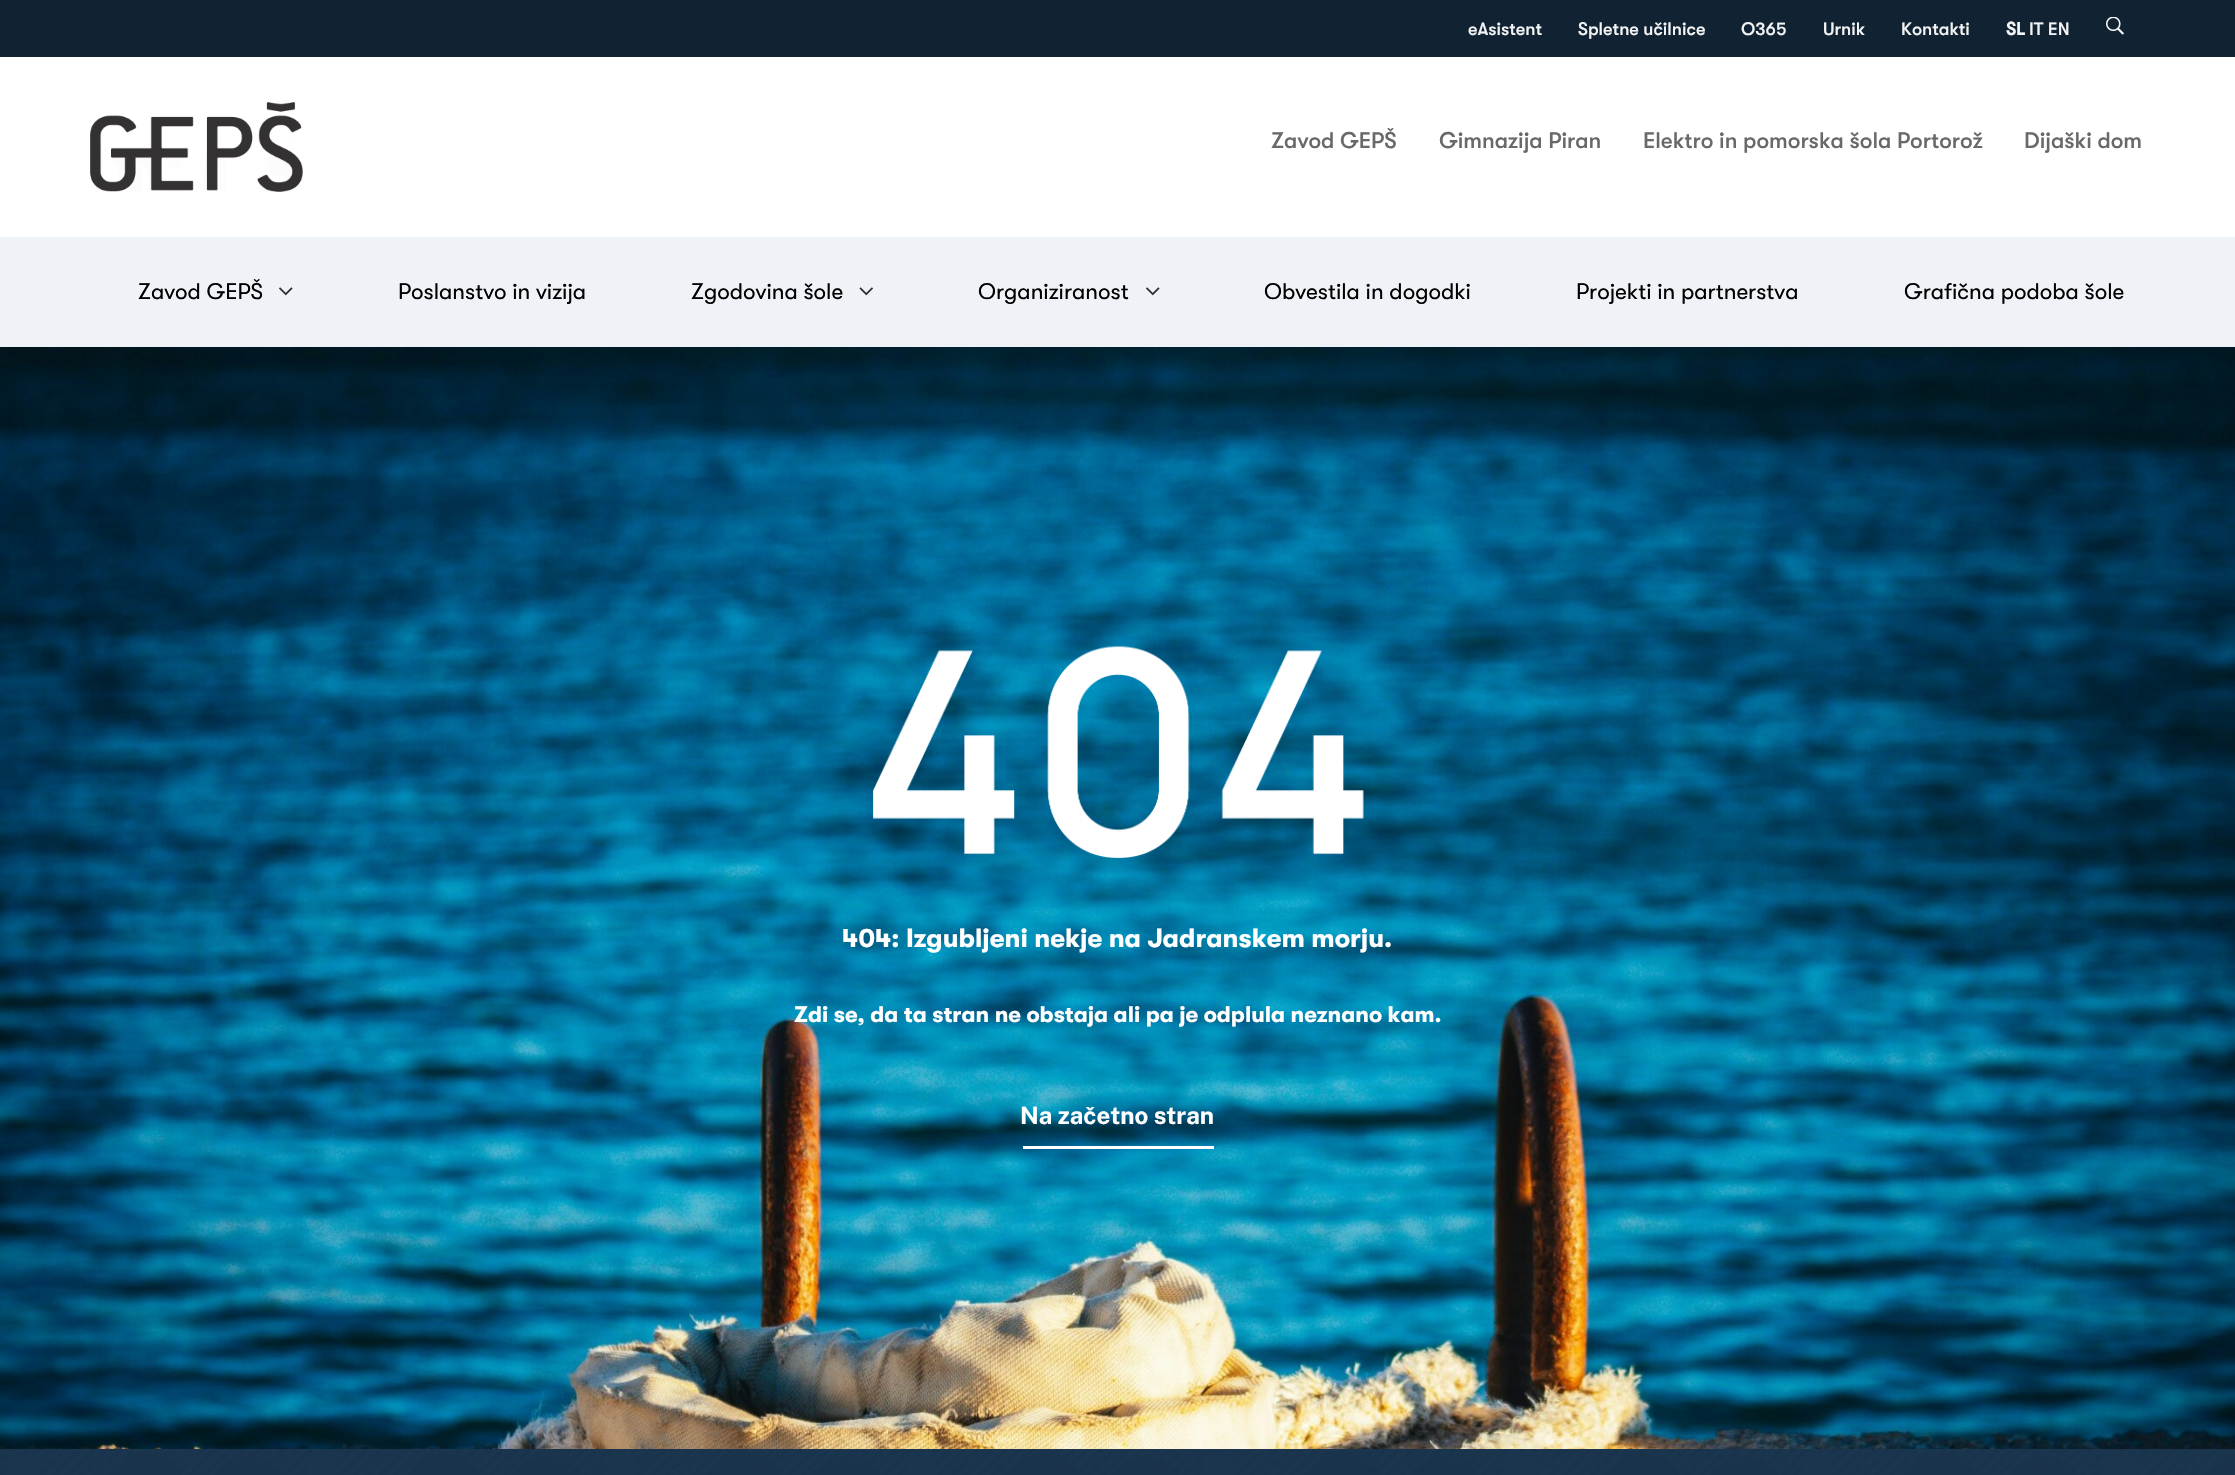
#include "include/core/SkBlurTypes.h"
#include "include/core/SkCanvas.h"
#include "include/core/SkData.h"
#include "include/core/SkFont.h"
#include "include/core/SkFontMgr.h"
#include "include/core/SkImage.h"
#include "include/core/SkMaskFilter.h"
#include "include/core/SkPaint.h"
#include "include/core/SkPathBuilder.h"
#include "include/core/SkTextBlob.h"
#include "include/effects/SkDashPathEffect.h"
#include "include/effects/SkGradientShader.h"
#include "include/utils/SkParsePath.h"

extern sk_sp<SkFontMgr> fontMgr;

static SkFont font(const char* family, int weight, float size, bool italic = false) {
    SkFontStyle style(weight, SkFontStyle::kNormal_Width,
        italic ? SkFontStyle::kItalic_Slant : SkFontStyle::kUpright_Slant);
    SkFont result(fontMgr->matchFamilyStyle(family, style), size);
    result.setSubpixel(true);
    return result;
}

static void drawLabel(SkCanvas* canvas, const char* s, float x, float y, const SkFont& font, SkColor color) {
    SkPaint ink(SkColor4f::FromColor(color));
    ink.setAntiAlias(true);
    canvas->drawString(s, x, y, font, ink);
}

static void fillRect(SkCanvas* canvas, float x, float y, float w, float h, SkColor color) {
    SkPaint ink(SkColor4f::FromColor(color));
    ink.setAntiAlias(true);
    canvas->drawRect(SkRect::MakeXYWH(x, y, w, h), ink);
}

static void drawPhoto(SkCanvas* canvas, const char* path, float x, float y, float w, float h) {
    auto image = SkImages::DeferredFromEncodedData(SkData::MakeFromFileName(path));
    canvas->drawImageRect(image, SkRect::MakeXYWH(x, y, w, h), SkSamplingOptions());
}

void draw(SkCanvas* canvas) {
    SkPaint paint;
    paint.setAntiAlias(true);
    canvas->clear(0xFFFFFFFF);
    drawPhoto(canvas, "assets/img5.png", 0, 347, 2235, 1102);
    paint.setColor(0x0D000000);
    paint.setMaskFilter(SkMaskFilter::MakeBlur(kNormal_SkBlurStyle, 19.5f));
    canvas->drawRect(SkRect::MakeXYWH(0, 15, 2235, 347), paint);
    paint.setMaskFilter(nullptr);
    fillRect(canvas, 0, 57, 2235, 180, 0xFFFFFFFF);
    fillRect(canvas, 0, 0, 2235, 57, 0xFF112232);
    SkFont font1 = font("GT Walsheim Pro", 500, 18);
    drawLabel(canvas, "eAsistent", 1468, 35, font1, 0xFFF3F4F5);
    drawLabel(canvas, "Spletne učilnice", 1578, 35, font1, 0xFFF3F4F5);
    drawLabel(canvas, "O365", 1741, 35, font1, 0xFFF3F4F5);
    drawLabel(canvas, "Urnik", 1823, 35, font1, 0xFFF3F4F5);
    drawLabel(canvas, "Kontakti", 1901, 35, font1, 0xFFF3F4F5);
    SkFont font2 = font("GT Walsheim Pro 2", 700, 18);
    drawLabel(canvas, "SL", 2006, 35, font2, 0xFFF3F4F5);
    drawLabel(canvas, "IT EN", 2029, 35, font1, 0xFFF3F4F5);
    drawPhoto(canvas, "assets/img1.png", 2106, 17, 18, 18);
    drawPhoto(canvas, "assets/img2.png", 90, 102, 213, 90);
    SkFont font3 = font("GT Walsheim Pro", 500, 22.5f);
    drawLabel(canvas, "Zavod GEPŠ", 1271, 148, font3, 0xFF696969);
    drawLabel(canvas, "Gimnazija Piran", 1439, 148, font3, 0xFF696969);
    drawLabel(canvas, "Elektro in pomorska šola Portorož", 1643, 148, font3, 0xFF696969);
    drawLabel(canvas, "Dijaški dom", 2024, 148, font3, 0xFF696969);
    fillRect(canvas, 0, 237, 2235, 110, 0xFFEFF3F7);
    SkFont font4 = font("GT Walsheim Pro", 400, 22.5f);
    drawLabel(canvas, "Zavod GEPŠ", 138, 299, font4, 0xFF000000);
    drawPhoto(canvas, "assets/img3.png", 279, 287, 14, 9);
    drawLabel(canvas, "Poslanstvo in vizija", 398, 299, font4, 0xFF000000);
    drawLabel(canvas, "Zgodovina šole", 691, 299, font4, 0xFF000000);
    drawPhoto(canvas, "assets/img4.png", 859, 287, 14, 9);
    drawLabel(canvas, "Organiziranost", 978, 299, font4, 0xFF000000);
    drawPhoto(canvas, "assets/img3.png", 1146, 287, 14, 9);
    drawLabel(canvas, "Obvestila in dogodki", 1264, 299, font4, 0xFF000000);
    drawLabel(canvas, "Projekti in partnerstva", 1576, 299, font4, 0xFF000000);
    drawLabel(canvas, "Grafična podoba šole", 1904, 299, font4, 0xFF000000);
    drawPhoto(canvas, "assets/img6.png", 873, 646, 491, 212);
    SkFont font5 = font("GT Walsheim Pro", 700, 26.3f);
    drawLabel(canvas, "404: Izgubljeni nekje na Jadranskem morju.", 842, 947, font5, 0xFFFFFFFF);
    SkFont font6 = font("GT Walsheim Pro", 700, 22.5f);
    drawLabel(canvas, "Zdi se, da ta stran ne obstaja ali pa je odplula neznano kam.", 794, 1022, font6, 0xFFFFFFFF);
    fillRect(canvas, 1023, 1146, 191, 3, 0xFFFEFFFF);
    SkFont font7 = font("Public Sans", 700, 24);
    drawLabel(canvas, "Na začetno stran", 1020, 1124, font7, 0xFFFFFFFF);
    drawPhoto(canvas, "assets/img7.png", 0, 1449, 2235, 26);
}
